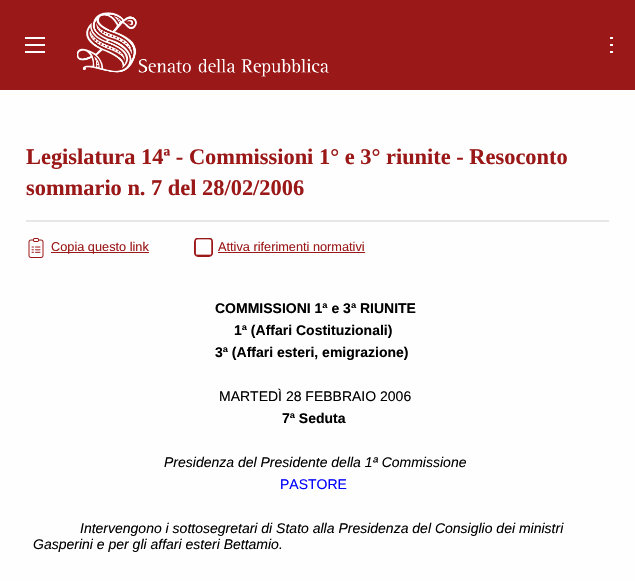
#include "include/core/SkBlurTypes.h"
#include "include/core/SkCanvas.h"
#include "include/core/SkData.h"
#include "include/core/SkFont.h"
#include "include/core/SkFontMgr.h"
#include "include/core/SkImage.h"
#include "include/core/SkMaskFilter.h"
#include "include/core/SkPaint.h"
#include "include/core/SkPathBuilder.h"
#include "include/core/SkTextBlob.h"
#include "include/effects/SkDashPathEffect.h"
#include "include/effects/SkGradientShader.h"
#include "include/utils/SkParsePath.h"

extern sk_sp<SkFontMgr> fontMgr;

static SkFont font(const char* family, int weight, float size, bool italic = false) {
    SkFontStyle style(weight, SkFontStyle::kNormal_Width,
        italic ? SkFontStyle::kItalic_Slant : SkFontStyle::kUpright_Slant);
    SkFont result(fontMgr->matchFamilyStyle(family, style), size);
    result.setSubpixel(true);
    return result;
}

static void drawLabel(SkCanvas* canvas, const char* s, float x, float y, const SkFont& font, SkColor color) {
    SkPaint ink(SkColor4f::FromColor(color));
    ink.setAntiAlias(true);
    canvas->drawString(s, x, y, font, ink);
}

static void fillRect(SkCanvas* canvas, float x, float y, float w, float h, SkColor color) {
    SkPaint ink(SkColor4f::FromColor(color));
    ink.setAntiAlias(true);
    canvas->drawRect(SkRect::MakeXYWH(x, y, w, h), ink);
}

static void drawPhoto(SkCanvas* canvas, const char* path, float x, float y, float w, float h) {
    auto image = SkImages::DeferredFromEncodedData(SkData::MakeFromFileName(path));
    canvas->drawImageRect(image, SkRect::MakeXYWH(x, y, w, h), SkSamplingOptions());
}

void draw(SkCanvas* canvas) {
    SkPaint paint;
    paint.setAntiAlias(true);
    canvas->clear(0xFFFEFEFE);
    fillRect(canvas, 0, 0, 635, 90, 0xFF9B1818);
    fillRect(canvas, 25, 51, 20, 2, 0xFFFEFEFE);
    fillRect(canvas, 25, 44, 20, 2, 0xFFFEFEFE);
    fillRect(canvas, 25, 37, 20, 2, 0xFFFEFEFE);
    drawPhoto(canvas, "assets/img1.png", 77, 12, 252, 65);
    fillRect(canvas, 610, 51, 3, 2, 0xFFFEFEFE);
    fillRect(canvas, 610, 44, 3, 2, 0xFFFEFEFE);
    fillRect(canvas, 610, 37, 3, 2, 0xFFFEFEFE);
    fillRect(canvas, 26, 220, 583, 2, 0xFFE7E7E7);
    SkFont font1 = font("Liberation Serif", 700, 22.4f);
    drawLabel(canvas, "Legislatura 14ª - Commissioni 1° e 3° riunite - Resoconto", 26, 164, font1, 0xFF9B1818);
    drawLabel(canvas, "sommario n. 7 del 28/02/2006", 26, 195, font1, 0xFF9B1818);
    drawPhoto(canvas, "assets/img2.png", 28, 238, 16, 20);
    fillRect(canvas, 51, 252, 98, 1, 0xFF9B1818);
    SkFont font2 = font("Liberation Sans", 400, 12.75f);
    drawLabel(canvas, "Copia questo link", 51, 251, font2, 0xFF9B1818);
    drawPhoto(canvas, "assets/img3.png", 194, 238, 19, 18);
    paint.setStroke(true);
    paint.setStrokeWidth(1);
    paint.setColor(0xFF9B1818);
    canvas->drawRoundRect(SkRect::MakeXYWH(194.5f, 238.5f, 18, 18), 3.5f, 3.5f, paint);
    drawLabel(canvas, "Attiva riferimenti normativi", 218, 251, font2, 0xFF9B1818);
    fillRect(canvas, 218, 252, 147, 1, 0xFF9B1818);
    SkFont font3 = font("Liberation Sans", 700, 14);
    drawLabel(canvas, "COMMISSIONI 1ª e 3ª RIUNITE", 215, 313, font3, 0xFF000000);
    drawLabel(canvas, "1ª (Affari Costituzionali)", 234, 335, font3, 0xFF000000);
    drawLabel(canvas, "3ª (Affari esteri, emigrazione)", 215, 357, font3, 0xFF000000);
    SkFont font4 = font("Liberation Sans", 400, 14);
    drawLabel(canvas, "MARTEDÌ 28 FEBBRAIO 2006", 219, 401, font4, 0xFF000000);
    drawLabel(canvas, "7ª Seduta", 282, 423, font3, 0xFF000000);
    SkFont font5 = font("Liberation Sans", 400, 14, true);
    drawLabel(canvas, "Presidenza del Presidente della 1ª Commissione", 164, 467, font5, 0xFF000000);
    drawLabel(canvas, "PASTORE", 280, 489, font4, 0xFF0000FF);
    drawLabel(canvas, "Intervengono i sottosegretari di Stato alla Presidenza del Consiglio dei ministri", 80, 533, font5, 0xFF000000);
    drawLabel(canvas, "Gasperini e per gli affari esteri Bettamio.", 33, 549, font5, 0xFF000000);
}
